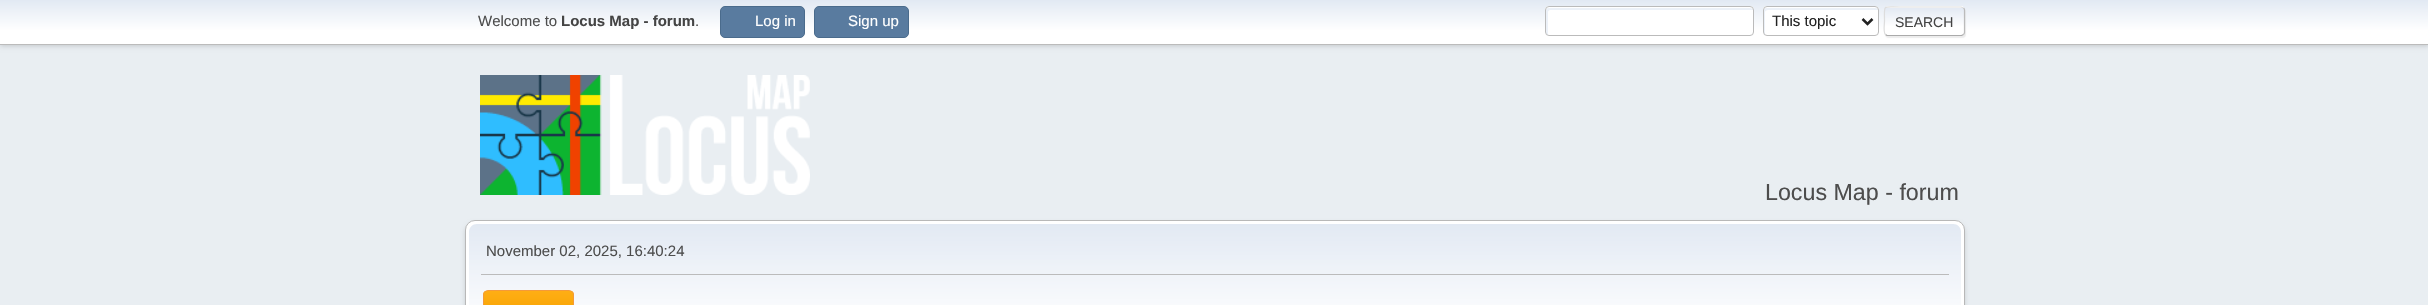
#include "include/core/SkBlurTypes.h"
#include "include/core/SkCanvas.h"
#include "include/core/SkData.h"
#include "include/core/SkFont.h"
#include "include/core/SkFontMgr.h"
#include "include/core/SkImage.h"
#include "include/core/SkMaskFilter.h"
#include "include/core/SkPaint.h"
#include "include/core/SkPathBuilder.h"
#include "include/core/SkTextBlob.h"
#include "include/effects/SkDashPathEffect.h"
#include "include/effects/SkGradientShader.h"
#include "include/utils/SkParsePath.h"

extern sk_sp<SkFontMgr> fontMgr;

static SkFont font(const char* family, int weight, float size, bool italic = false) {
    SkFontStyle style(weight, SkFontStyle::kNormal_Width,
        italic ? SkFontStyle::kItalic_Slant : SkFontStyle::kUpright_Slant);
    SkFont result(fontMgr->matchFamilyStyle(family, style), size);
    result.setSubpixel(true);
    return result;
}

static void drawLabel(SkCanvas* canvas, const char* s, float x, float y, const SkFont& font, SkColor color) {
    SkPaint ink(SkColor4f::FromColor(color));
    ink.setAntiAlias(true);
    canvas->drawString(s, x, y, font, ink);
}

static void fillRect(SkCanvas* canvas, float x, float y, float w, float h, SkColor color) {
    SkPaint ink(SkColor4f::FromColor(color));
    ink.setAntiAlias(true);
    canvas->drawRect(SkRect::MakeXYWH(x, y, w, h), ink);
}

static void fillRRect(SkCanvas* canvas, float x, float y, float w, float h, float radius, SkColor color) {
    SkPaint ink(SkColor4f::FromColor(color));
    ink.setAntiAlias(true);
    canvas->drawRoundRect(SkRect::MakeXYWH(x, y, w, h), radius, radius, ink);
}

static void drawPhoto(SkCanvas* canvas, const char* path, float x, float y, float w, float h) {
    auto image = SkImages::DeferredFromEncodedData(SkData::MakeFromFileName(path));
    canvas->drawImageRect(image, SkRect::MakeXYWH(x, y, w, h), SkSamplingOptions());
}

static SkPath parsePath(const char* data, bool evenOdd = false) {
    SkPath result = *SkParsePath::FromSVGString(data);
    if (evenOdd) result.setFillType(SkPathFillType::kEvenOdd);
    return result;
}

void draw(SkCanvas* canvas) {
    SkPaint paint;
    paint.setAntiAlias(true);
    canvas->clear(0xFFE9EEF2);
    paint.setColor(0x29000000);
    paint.setMaskFilter(SkMaskFilter::MakeBlur(kNormal_SkBlurStyle, 2.5f));
    canvas->drawRect(SkRect::MakeXYWH(0, 1, 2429, 45), paint);
    paint.setMaskFilter(nullptr);
    {
        const SkColor colors[] = {0xFFE2E9F3, 0xFFFFFFFF};
        const float stops[] = {0, 0.7f};
        const SkPoint ends[] = {{1214, 0}, {1214, 44}};
        paint.setShader(SkGradientShader::MakeLinear(ends, colors, stops, 2, SkTileMode::kClamp));
        paint.setAlpha(255);
    }
    canvas->drawRect(SkRect::MakeXYWH(0, 0, 2428, 44), paint);
    fillRect(canvas, 0, 44, 2428, 1, 0xFFBBBBBB);
    SkFont font1 = font("Liberation Sans", 400, 15);
    drawLabel(canvas, "Welcome to", 478, 26, font1, 0xFF4D4D4D);
    SkFont font2 = font("Liberation Sans", 700, 15);
    drawLabel(canvas, "Locus Map - forum", 561, 26, font2, 0xFF444444);
    drawLabel(canvas, ".", 695, 26, font1, 0xFF4D4D4D);
    paint.setShader(nullptr);
    paint.setColor(0xFF597B9F);
    canvas->drawRoundRect(SkRect::MakeXYWH(720.5f, 6.5f, 84, 31), 4.5f, 4.5f, paint);
    paint.setStroke(true);
    paint.setStrokeWidth(1);
    paint.setColor(0xFF4A6B8C);
    canvas->drawRoundRect(SkRect::MakeXYWH(720.5f, 6.5f, 84, 31), 4.5f, 4.5f, paint);
    drawLabel(canvas, "Log in", 755, 26, font1, 0xFFFFFFFF);
    paint.setStroke(false);
    paint.setColor(0xFF597B9F);
    canvas->drawRoundRect(SkRect::MakeXYWH(814.5f, 6.5f, 94, 31), 4.5f, 4.5f, paint);
    paint.setStroke(true);
    paint.setColor(0xFF4A6B8C);
    canvas->drawRoundRect(SkRect::MakeXYWH(814.5f, 6.5f, 94, 31), 4.5f, 4.5f, paint);
    drawLabel(canvas, "Sign up", 848, 26, font1, 0xFFFFFFFF);
    fillRRect(canvas, 1545, 6, 209, 30, 4, 0xFFFFFFFF);
    paint.setStroke(false);
    paint.setColor(0xFFECF1F8);
    canvas->drawPath(parsePath("M1550 10H1751H1753C1753 9 1752 8 1750 8H1548C1547 8 1546 9 1546 10V32C1546 34 1547 35 1548 35V12C1548 11 1549 10 1550 10Z"), paint);
    paint.setStroke(true);
    paint.setColor(0xFFBBBBBB);
    canvas->drawRoundRect(SkRect::MakeXYWH(1545.5f, 6.5f, 208, 29), 3.5f, 3.5f, paint);
    fillRRect(canvas, 1763, 6, 116, 30, 4, 0xFFFFFFFF);
    paint.setStroke(false);
    paint.setColor(0xFFECF1F8);
    canvas->drawPath(parsePath("M1768 10H1876H1878C1878 9 1877 8 1876 8H1766C1765 8 1764 9 1764 10V32C1764 33 1764 34 1765 35V12C1765 11 1766 10 1768 10Z"), paint);
    paint.setStroke(true);
    paint.setColor(0xFFBBBBBB);
    canvas->drawRoundRect(SkRect::MakeXYWH(1763.5f, 6.5f, 115, 29), 3.5f, 3.5f, paint);
    paint.setStrokeWidth(2.5f);
    paint.setColor(0xFF222222);
    canvas->drawPath(parsePath("M1862.5 19L1867.5 24L1872.5 19"), paint);
    drawLabel(canvas, "This topic", 1772, 26, font1, 0xFF222222);
    paint.setStroke(false);
    paint.setColor(0x91DDDDDD);
    paint.setMaskFilter(SkMaskFilter::MakeBlur(kNormal_SkBlurStyle, 0.5f));
    canvas->drawRoundRect(SkRect::MakeXYWH(1885, 8, 81, 30), 4, 4, paint);
    paint.setMaskFilter(nullptr);
    canvas->save();
    canvas->clipPath(parsePath("M1888 6H1961C1963 6 1965 8 1965 10V32C1965 34 1963 36 1961 36H1888C1886 36 1884 34 1884 32V10C1884 8 1886 6 1888 6Z"), true);
    {
        const SkColor colors[] = {0xFFE2E9F3, 0xFFFFFFFF};
        const float stops[] = {0, 0.7f};
        const SkPoint ends[] = {{1924, -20}, {1924, 7.5f}};
        paint.setShader(SkGradientShader::MakeLinear(ends, colors, stops, 2, SkTileMode::kClamp));
        paint.setAlpha(255);
    }
    canvas->drawRect(SkRect::MakeXYWH(1884, 6, 81, 2), paint);
    {
        const SkColor colors[] = {0xFFE2E9F3, 0xFFFFFFFF};
        const float stops[] = {0, 0.7f};
        const SkPoint ends[] = {{1924, 7.5f}, {1924, 35}};
        paint.setShader(SkGradientShader::MakeLinear(ends, colors, stops, 2, SkTileMode::kClamp));
        paint.setAlpha(255);
    }
    canvas->drawRect(SkRect::MakeXYWH(1884, 8, 81, 27), paint);
    canvas->restore();
    paint.setStroke(true);
    paint.setStrokeWidth(1.2f);
    paint.setShader(nullptr);
    paint.setColor(0xFFBBBBBB);
    canvas->drawPath(parsePath("M1963.5 8C1964 8.5 1964.5 9 1964.5 10V32.5C1964.5 33.5 1964 34 1963.5 34.5"), paint);
    paint.setColor(0xFFAAAAAA);
    canvas->drawPath(parsePath("M1963.5 34.5L1961.5 35.5H1887L1885.5 34.5"), paint);
    paint.setColor(0xFFDDDDDD);
    canvas->drawPath(parsePath("M1885.5 34.5C1883 32.5 1884.5 24 1884.5 21C1884.5 4 1882 7 1900 7H1961L1963.5 8"), paint);
    SkFont font3 = font("Liberation Sans", 400, 14);
    drawLabel(canvas, "SEARCH", 1895, 27, font3, 0xFF444444);
    drawPhoto(canvas, "assets/img1.png", 480, 75, 330, 120);
    SkFont font4 = font("Liberation Sans", 400, 23.25f);
    drawLabel(canvas, "Locus Map - forum", 1765, 200, font4, 0xFF4D4D4D);
    paint.setStroke(false);
    paint.setColor(0x24000000);
    paint.setMaskFilter(SkMaskFilter::MakeBlur(kNormal_SkBlurStyle, 2));
    canvas->drawRoundRect(SkRect::MakeXYWH(465, 223, 1500, 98), 10, 10, paint);
    paint.setMaskFilter(nullptr);
    paint.setColor(0xFFFFFFFF);
    canvas->drawRoundRect(SkRect::MakeXYWH(465.5f, 220.5f, 1499, 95), 9.5f, 9.5f, paint);
    paint.setStroke(true);
    paint.setStrokeWidth(1);
    paint.setColor(0xFFB8B8B8);
    canvas->drawRoundRect(SkRect::MakeXYWH(465.5f, 220.5f, 1499, 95), 9.5f, 9.5f, paint);
    paint.setStroke(false);
    {
        const SkColor colors[] = {0xFFE2E9F3, 0xFFFFFFFF};
        const float stops[] = {0, 0.7f};
        const SkPoint ends[] = {{1215, 224}, {1215, 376}};
        paint.setShader(SkGradientShader::MakeLinear(ends, colors, stops, 2, SkTileMode::kClamp));
        paint.setAlpha(255);
    }
    canvas->drawPath(parsePath("M477 224H1953C1957.5 224 1961 227.5 1961 232V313H469V232C469 227.5 472.5 224 477 224Z"), paint);
    fillRect(canvas, 481, 274, 1468, 1, 0xFFBBBBBB);
    drawLabel(canvas, "November 02, 2025, 16:40:24", 486, 256, font1, 0xFF4D4D4D);
    canvas->save();
    canvas->clipPath(parsePath("M488 290H569C572 290 574 292 574 295V316C574 319 572 321 569 321H488C485 321 483 319 483 316V295C483 292 485 290 488 290Z"), true);
    {
        const SkColor colors[] = {0xFFFFAE14, 0xFFF5A100};
        const float stops[] = {0, 1};
        const SkPoint ends[] = {{528, 291}, {528, 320}};
        paint.setShader(SkGradientShader::MakeLinear(ends, colors, stops, 2, SkTileMode::kClamp));
        paint.setAlpha(255);
    }
    canvas->drawRect(SkRect::MakeXYWH(483, 291, 91, 14), paint);
    canvas->restore();
    paint.setStroke(true);
    paint.setShader(nullptr);
    paint.setColor(0xFFF49A3A);
    canvas->drawRoundRect(SkRect::MakeXYWH(483.5f, 290.5f, 90, 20), 4.5f, 4.5f, paint);
}
